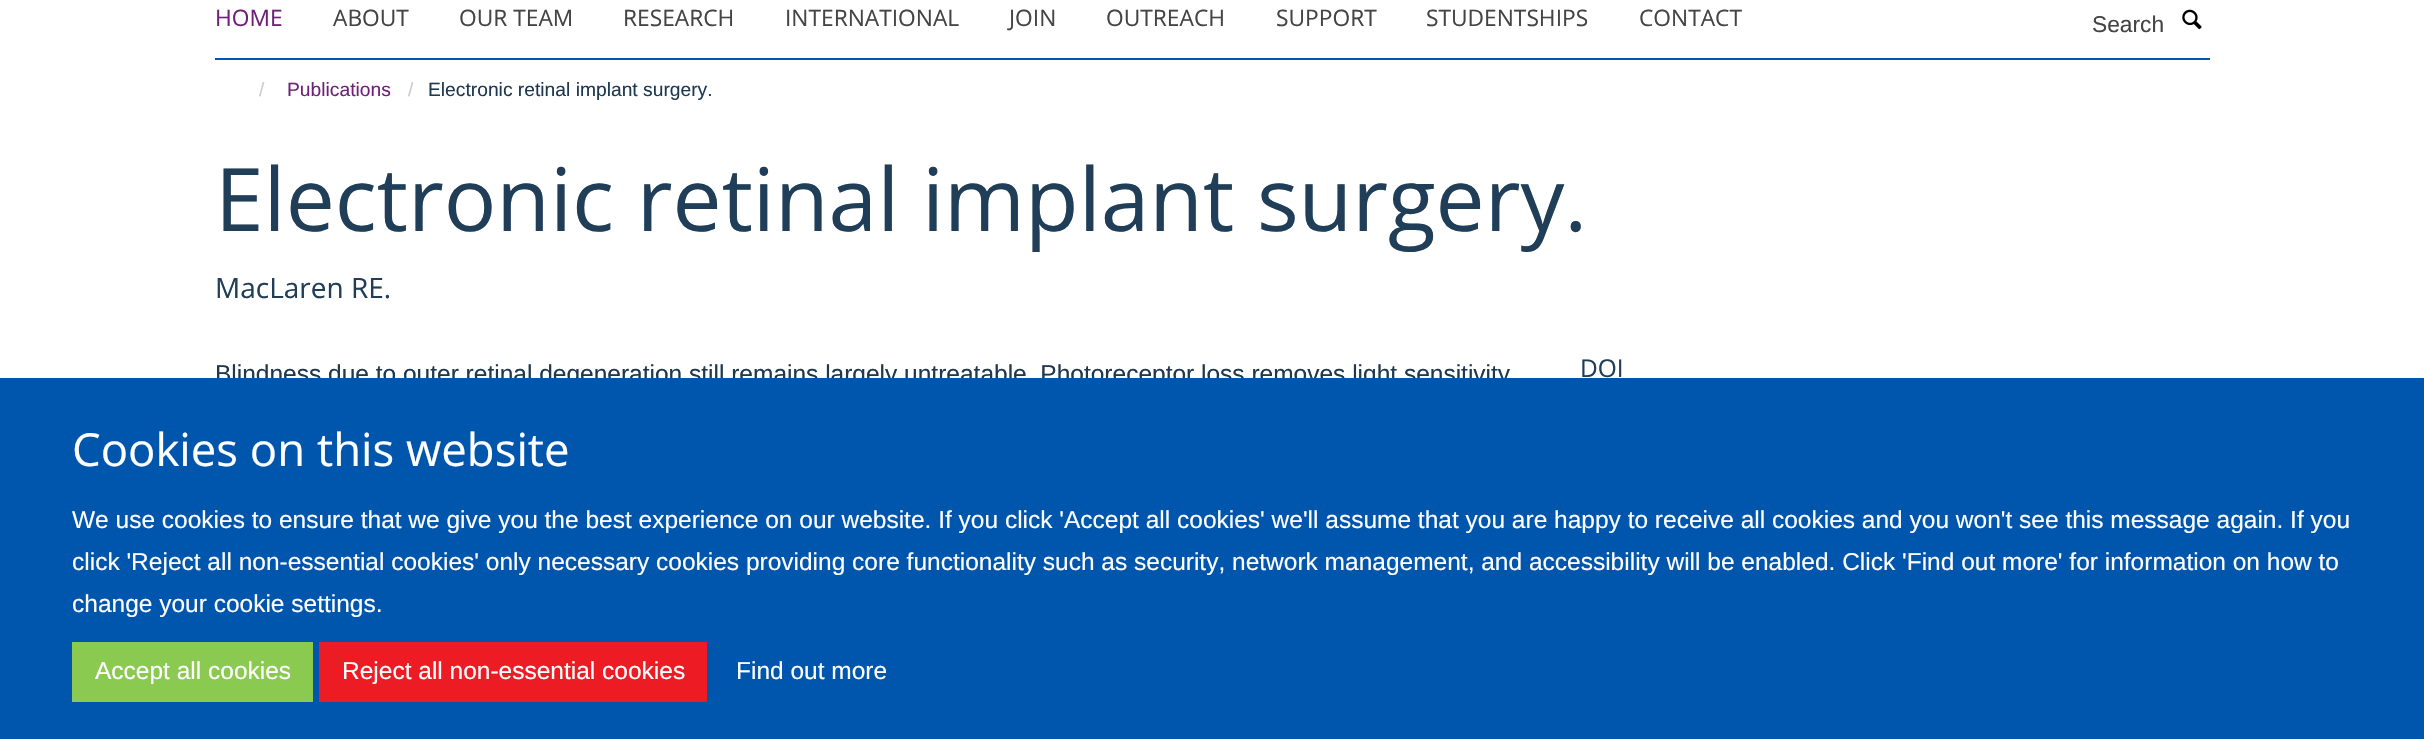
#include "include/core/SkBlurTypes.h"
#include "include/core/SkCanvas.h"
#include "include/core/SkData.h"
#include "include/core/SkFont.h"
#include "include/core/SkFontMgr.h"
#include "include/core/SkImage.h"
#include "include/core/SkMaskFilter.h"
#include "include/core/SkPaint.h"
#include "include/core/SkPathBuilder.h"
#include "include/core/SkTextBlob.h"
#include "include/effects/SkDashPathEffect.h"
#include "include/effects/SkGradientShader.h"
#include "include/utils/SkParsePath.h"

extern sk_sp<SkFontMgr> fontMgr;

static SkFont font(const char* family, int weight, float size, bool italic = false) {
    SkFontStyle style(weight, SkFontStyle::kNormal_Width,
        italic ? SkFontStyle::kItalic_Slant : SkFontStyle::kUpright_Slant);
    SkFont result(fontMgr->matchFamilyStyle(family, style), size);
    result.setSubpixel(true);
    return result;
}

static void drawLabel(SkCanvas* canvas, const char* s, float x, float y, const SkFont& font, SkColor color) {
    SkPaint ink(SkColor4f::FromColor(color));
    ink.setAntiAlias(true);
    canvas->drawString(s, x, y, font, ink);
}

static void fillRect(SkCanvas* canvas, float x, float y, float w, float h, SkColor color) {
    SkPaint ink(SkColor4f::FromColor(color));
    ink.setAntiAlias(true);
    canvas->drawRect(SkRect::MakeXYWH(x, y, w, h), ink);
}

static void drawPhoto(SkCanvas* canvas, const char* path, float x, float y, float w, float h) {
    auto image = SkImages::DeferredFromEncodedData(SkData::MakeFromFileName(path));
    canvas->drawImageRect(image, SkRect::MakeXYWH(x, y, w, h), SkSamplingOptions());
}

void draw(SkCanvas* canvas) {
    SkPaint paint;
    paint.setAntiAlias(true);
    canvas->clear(0xFFFFFFFF);
    fillRect(canvas, 215, 58, 1995, 2, 0xFF0055AD);
    SkFont font1 = font("Open Sans", 400, 22.75f);
    drawLabel(canvas, "HOME", 215, 26, font1, 0xFF6F2078);
    drawLabel(canvas, "ABOUT", 333, 26, font1, 0xFF444444);
    drawLabel(canvas, "OUR TEAM", 459, 26, font1, 0xFF444444);
    drawLabel(canvas, "RESEARCH", 623, 26, font1, 0xFF444444);
    drawLabel(canvas, "INTERNATIONAL", 785, 26, font1, 0xFF444444);
    drawLabel(canvas, "JOIN", 1009, 26, font1, 0xFF444444);
    drawLabel(canvas, "OUTREACH", 1106, 26, font1, 0xFF444444);
    drawLabel(canvas, "SUPPORT", 1276, 26, font1, 0xFF444444);
    drawLabel(canvas, "STUDENTSHIPS", 1426, 26, font1, 0xFF444444);
    drawLabel(canvas, "CONTACT", 1639, 26, font1, 0xFF444444);
    SkFont font2 = font("Liberation Sans", 400, 22.75f);
    drawLabel(canvas, "Search", 2092, 32, font2, 0xFF444444);
    drawPhoto(canvas, "assets/img1.png", 2182, 9, 20, 21);
    SkFont font3 = font("Liberation Sans", 400, 19.25f);
    drawLabel(canvas, "/", 259, 96, font3, 0xFFCCCCCC);
    drawLabel(canvas, "Publications", 287, 96, font3, 0xFF6F2078);
    drawLabel(canvas, "/", 408, 96, font3, 0xFFCCCCCC);
    drawLabel(canvas, "Electronic retinal implant surgery.", 428, 96, font3, 0xFF1D3850);
    SkFont font4 = font("Open Sans", 400, 87.5f);
    drawLabel(canvas, "Electronic retinal implant surgery.", 215, 231, font4, 0xFF203E58);
    SkFont font5 = font("Open Sans", 400, 28);
    drawLabel(canvas, "MacLaren RE.", 215, 298, font5, 0xFF203E58);
    SkFont font6 = font("Liberation Sans", 400, 24.5f);
    drawLabel(canvas, "Blindness due to outer retinal degeneration still remains largely untreatable. Photoreceptor loss removes light sensitivity", 215, 382, font6, 0xFF1D3850);
    SkFont font7 = font("Open Sans", 400, 24.5f);
    drawLabel(canvas, "DOI", 1580, 377, font7, 0xFF203E58);
    fillRect(canvas, 0, 378, 2424, 361, 0xFF0055AD);
    SkFont font8 = font("Open Sans", 400, 45.5f);
    drawLabel(canvas, "Cookies on this website", 72, 466, font8, 0xFFFFFFFF);
    drawLabel(canvas, "We use cookies to ensure that we give you the best experience on our website. If you click 'Accept all cookies' we'll assume that you are happy to receive all cookies and you won't see this message again. If you", 72, 528, font6, 0xFFFFFFFF);
    drawLabel(canvas, "click 'Reject all non-essential cookies' only necessary cookies providing core functionality such as security, network management, and accessibility will be enabled. Click 'Find out more' for information on how to", 72, 570, font6, 0xFFFFFFFF);
    drawLabel(canvas, "change your cookie settings.", 72, 612, font6, 0xFFFFFFFF);
    fillRect(canvas, 72, 642, 241, 60, 0xFF8BCA50);
    drawLabel(canvas, "Accept all cookies", 95, 679, font6, 0xFFFFFFFF);
    fillRect(canvas, 319, 642, 388, 60, 0xFFED1C24);
    drawLabel(canvas, "Reject all non-essential cookies", 342, 679, font6, 0xFFFFFFFF);
    drawLabel(canvas, "Find out more", 736, 679, font6, 0xFFFFFFFF);
}
